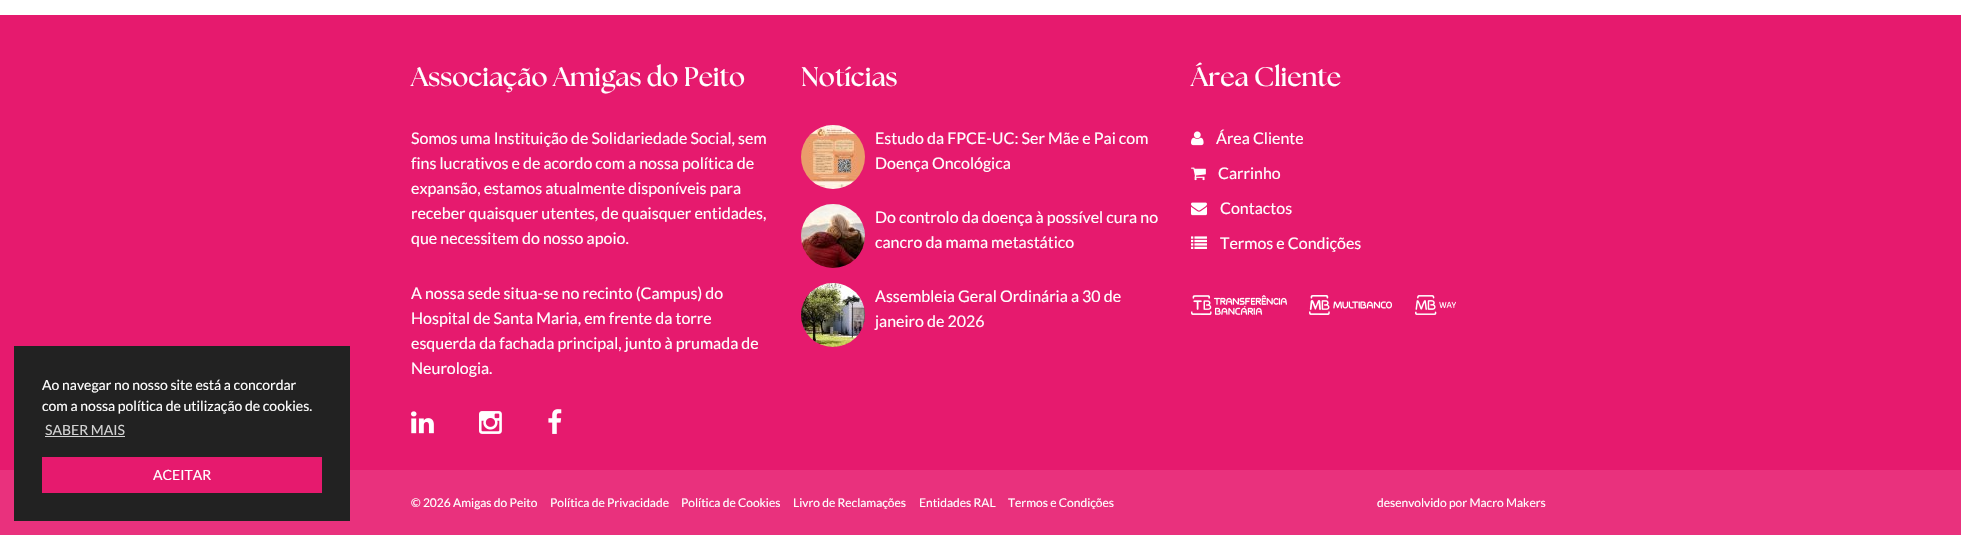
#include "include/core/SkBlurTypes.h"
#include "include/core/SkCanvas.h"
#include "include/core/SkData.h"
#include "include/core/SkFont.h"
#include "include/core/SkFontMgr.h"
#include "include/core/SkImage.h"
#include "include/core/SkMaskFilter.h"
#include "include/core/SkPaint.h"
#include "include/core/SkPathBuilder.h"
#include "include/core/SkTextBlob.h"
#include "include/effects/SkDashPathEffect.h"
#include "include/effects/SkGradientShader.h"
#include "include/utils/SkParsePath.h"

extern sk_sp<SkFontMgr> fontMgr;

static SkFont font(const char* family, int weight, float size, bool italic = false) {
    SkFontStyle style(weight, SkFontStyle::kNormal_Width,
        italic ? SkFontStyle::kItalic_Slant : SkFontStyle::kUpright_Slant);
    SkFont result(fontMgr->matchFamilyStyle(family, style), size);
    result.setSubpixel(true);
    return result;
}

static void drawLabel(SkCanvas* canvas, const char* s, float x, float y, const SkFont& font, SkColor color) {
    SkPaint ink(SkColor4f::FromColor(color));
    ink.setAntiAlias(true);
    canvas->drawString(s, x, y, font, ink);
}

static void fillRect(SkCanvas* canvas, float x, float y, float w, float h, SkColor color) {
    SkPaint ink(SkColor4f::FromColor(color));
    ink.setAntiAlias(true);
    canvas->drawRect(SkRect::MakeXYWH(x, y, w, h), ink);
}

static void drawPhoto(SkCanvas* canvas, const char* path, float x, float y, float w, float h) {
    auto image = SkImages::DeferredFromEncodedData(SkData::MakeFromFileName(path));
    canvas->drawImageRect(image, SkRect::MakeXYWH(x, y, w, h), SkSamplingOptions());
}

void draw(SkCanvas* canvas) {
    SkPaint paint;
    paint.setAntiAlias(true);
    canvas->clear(0xFFFFFFFF);
    fillRect(canvas, 0, 15, 1961, 455, 0xFFE61A6E);
    SkFont font1 = font("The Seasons", 700, 26.75f);
    drawLabel(canvas, "Associação Amigas do Peito", 411, 86, font1, 0xFFFFFFFF);
    SkFont font2 = font("Lato", 400, 16);
    drawLabel(canvas, "Somos uma Instituição de Solidariedade Social, sem", 411, 144, font2, 0xFFFFFFFF);
    drawLabel(canvas, "fins lucrativos e de acordo com a nossa política de", 411, 169, font2, 0xFFFFFFFF);
    drawLabel(canvas, "expansão, estamos atualmente disponíveis para", 411, 194, font2, 0xFFFFFFFF);
    drawLabel(canvas, "receber quaisquer utentes, de quaisquer entidades,", 411, 219, font2, 0xFFFFFFFF);
    drawLabel(canvas, "que necessitem do nosso apoio.", 411, 244, font2, 0xFFFFFFFF);
    drawLabel(canvas, "A nossa sede situa-se no recinto (Campus) do", 411, 299, font2, 0xFFFFFFFF);
    drawLabel(canvas, "Hospital de Santa Maria, em frente da torre", 411, 324, font2, 0xFFFFFFFF);
    drawLabel(canvas, "esquerda da fachada principal, junto à prumada de", 411, 349, font2, 0xFFFFFFFF);
    drawLabel(canvas, "Neurologia.", 411, 374, font2, 0xFFFFFFFF);
    drawPhoto(canvas, "assets/img1.png", 411, 411, 23, 23);
    drawPhoto(canvas, "assets/img2.png", 479, 411, 23, 23);
    drawPhoto(canvas, "assets/img3.png", 548, 409, 14, 25);
    drawLabel(canvas, "Notícias", 801, 86, font1, 0xFFFFFFFF);
    drawPhoto(canvas, "assets/img4.png", 801, 125, 64, 64);
    drawLabel(canvas, "Estudo da FPCE-UC: Ser Mãe e Pai com", 875, 144, font2, 0xFFFFFFFF);
    drawLabel(canvas, "Doença Oncológica", 875, 169, font2, 0xFFFFFFFF);
    drawPhoto(canvas, "assets/img5.png", 801, 204, 64, 64);
    drawLabel(canvas, "Do controlo da doença à possível cura no", 875, 223, font2, 0xFFFFFFFF);
    drawLabel(canvas, "cancro da mama metastático", 875, 248, font2, 0xFFFFFFFF);
    drawPhoto(canvas, "assets/img6.png", 801, 283, 64, 64);
    drawLabel(canvas, "Assembleia Geral Ordinária a 30 de", 875, 302, font2, 0xFFFFFFFF);
    drawLabel(canvas, "janeiro de 2026", 875, 327, font2, 0xFFFFFFFF);
    drawLabel(canvas, "Área Cliente", 1191, 86, font1, 0xFFFFFFFF);
    drawPhoto(canvas, "assets/img7.png", 1191, 131, 13, 15);
    drawLabel(canvas, "Área Cliente", 1216, 144, font2, 0xFFFFFFFF);
    drawPhoto(canvas, "assets/img8.png", 1191, 167, 15, 14);
    drawLabel(canvas, "Carrinho", 1218, 179, font2, 0xFFFFFFFF);
    drawPhoto(canvas, "assets/img9.png", 1191, 202, 16, 14);
    drawLabel(canvas, "Contactos", 1220, 214, font2, 0xFFFFFFFF);
    drawPhoto(canvas, "assets/img10.png", 1191, 236, 16, 13);
    drawLabel(canvas, "Termos e Condições", 1220, 249, font2, 0xFFFFFFFF);
    drawPhoto(canvas, "assets/img11.png", 1191, 295, 96, 20);
    drawPhoto(canvas, "assets/img12.png", 1309, 295, 83, 20);
    drawPhoto(canvas, "assets/img13.png", 1415, 295, 41, 20);
    fillRect(canvas, 0, 470, 1961, 65, 0xFFE9317D);
    fillRect(canvas, 14, 346, 336, 175, 0xFF222222);
    SkFont font3 = font("Lato", 400, 14);
    drawLabel(canvas, "Ao navegar no nosso site está a concordar", 42, 390, font3, 0xFFFFFFFF);
    drawLabel(canvas, "com a nossa política de utilização de cookies.", 42, 411, font3, 0xFFFFFFFF);
    drawLabel(canvas, "SABER MAIS", 45, 435, font3, 0xFFD3D3D3);
    fillRect(canvas, 45, 436, 80, 1, 0xFFD3D3D3);
    fillRect(canvas, 42, 457, 280, 36, 0xFFE61A6E);
    drawLabel(canvas, "ACEITAR", 153, 480, font3, 0xFFFFFFFF);
    SkFont font4 = font("Lato", 400, 12);
    drawLabel(canvas, "© 2026 Amigas do Peito", 411, 507, font4, 0xFFFFFFFF);
    drawLabel(canvas, "Política de Privacidade", 550, 507, font4, 0xFFFFFFFF);
    drawLabel(canvas, "Política de Cookies", 681, 507, font4, 0xFFFFFFFF);
    drawLabel(canvas, "Livro de Reclamações", 793, 507, font4, 0xFFFFFFFF);
    drawLabel(canvas, "Entidades RAL", 919, 507, font4, 0xFFFFFFFF);
    drawLabel(canvas, "Termos e Condições", 1008, 507, font4, 0xFFFFFFFF);
    drawLabel(canvas, "desenvolvido por Macro Makers", 1377, 507, font4, 0xFFFFFFFF);
}
